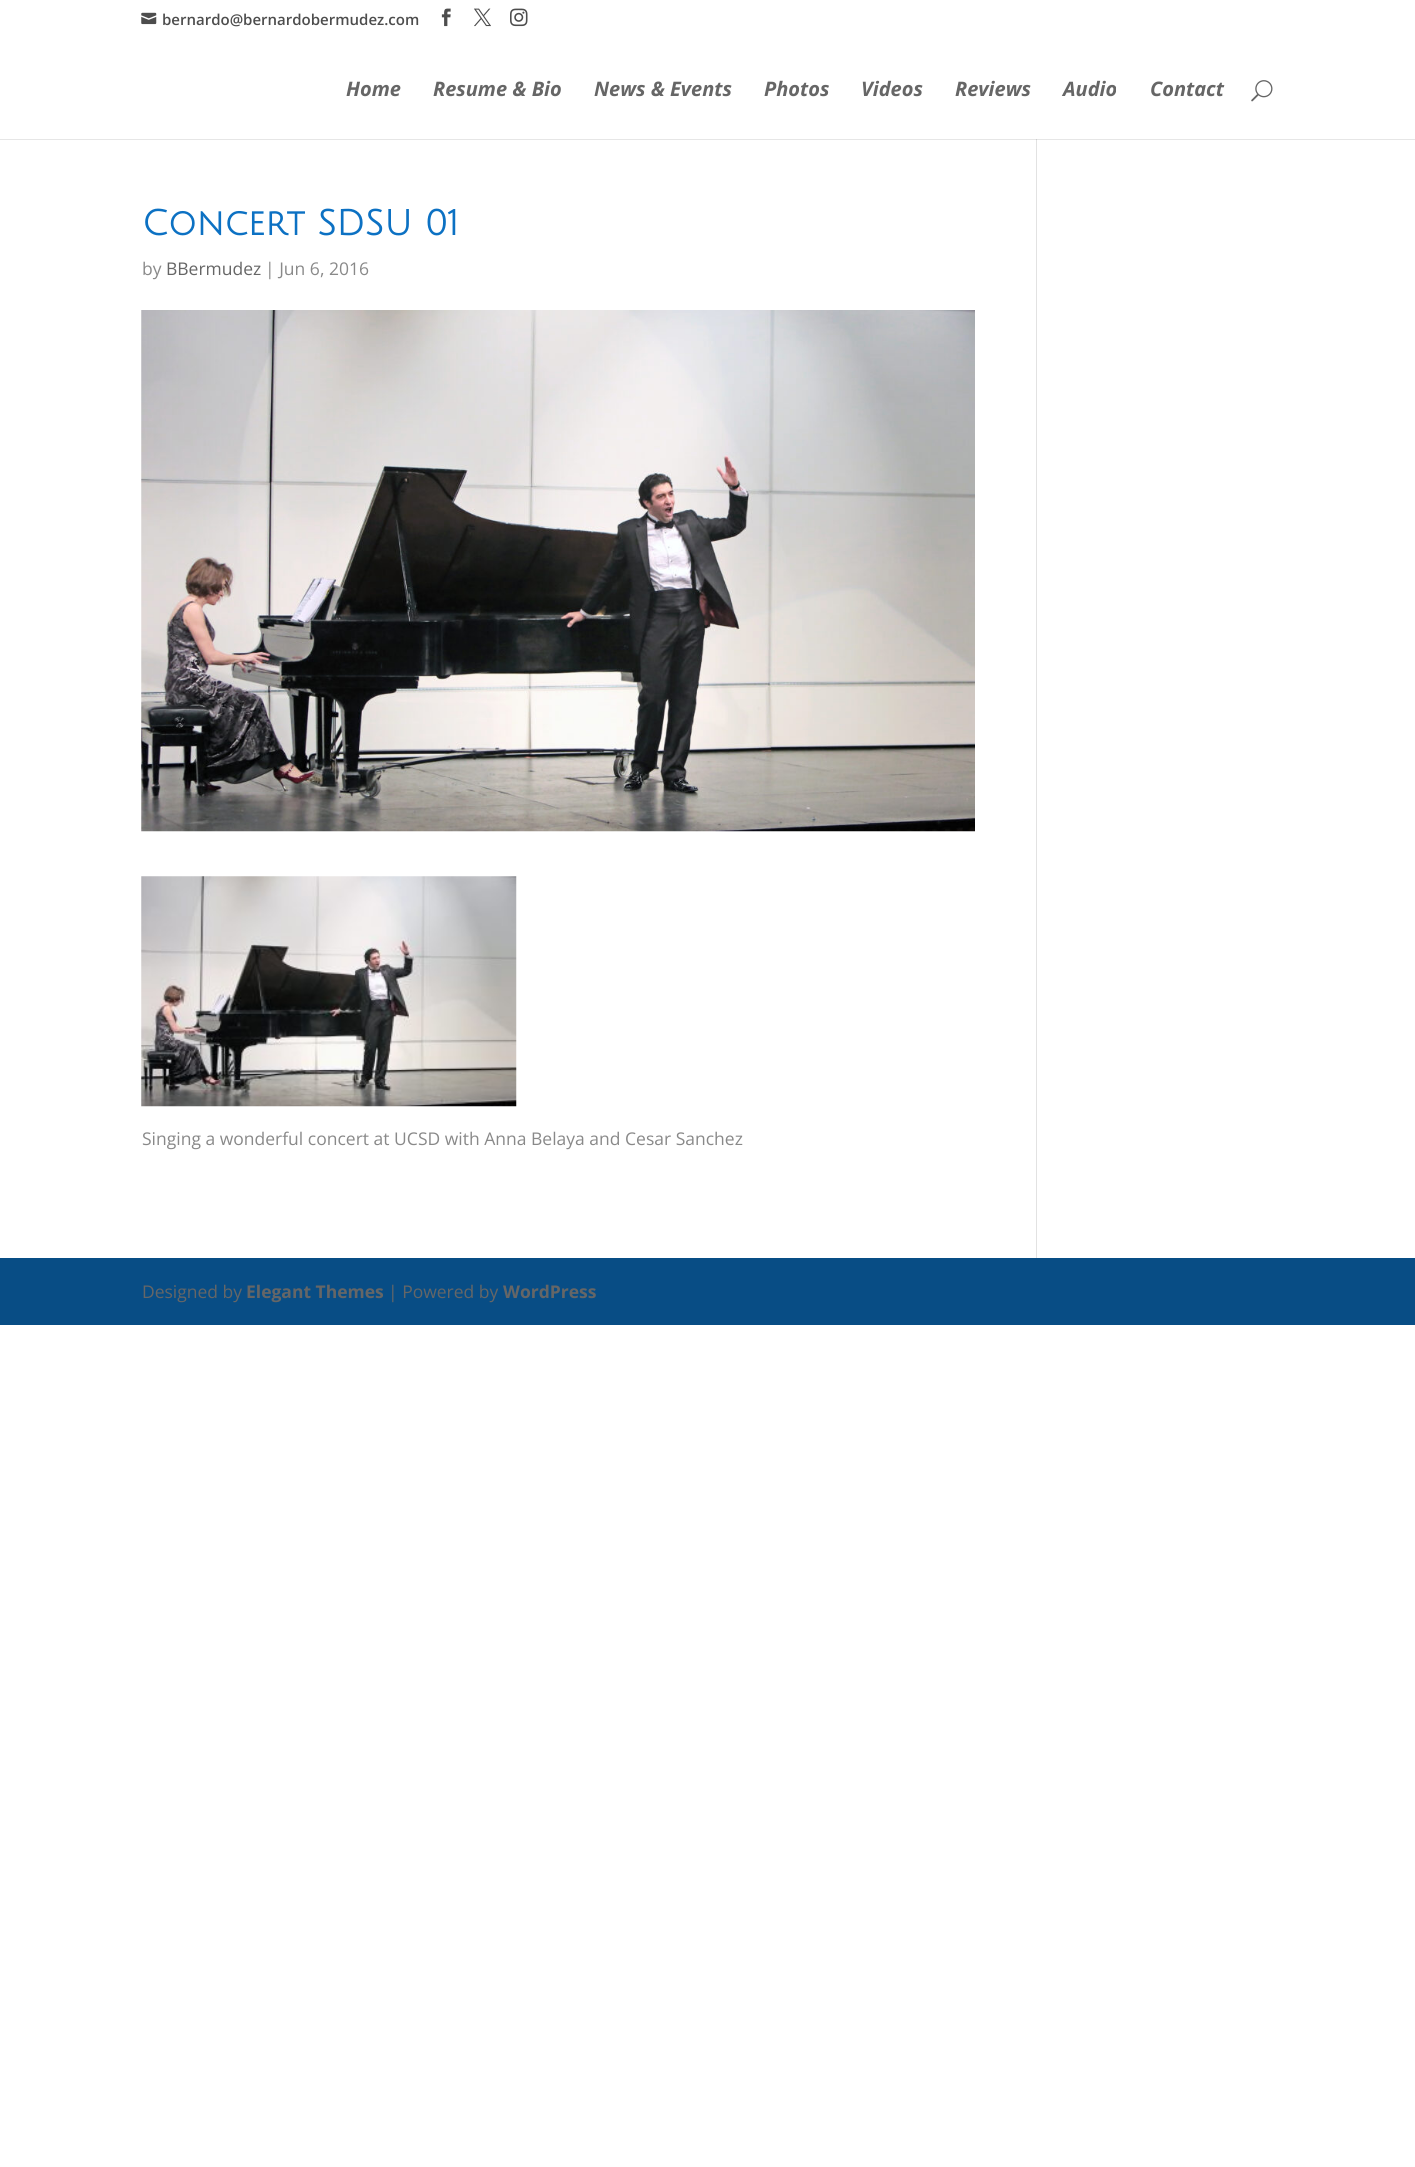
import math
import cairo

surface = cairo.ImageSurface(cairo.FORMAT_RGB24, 1415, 2167)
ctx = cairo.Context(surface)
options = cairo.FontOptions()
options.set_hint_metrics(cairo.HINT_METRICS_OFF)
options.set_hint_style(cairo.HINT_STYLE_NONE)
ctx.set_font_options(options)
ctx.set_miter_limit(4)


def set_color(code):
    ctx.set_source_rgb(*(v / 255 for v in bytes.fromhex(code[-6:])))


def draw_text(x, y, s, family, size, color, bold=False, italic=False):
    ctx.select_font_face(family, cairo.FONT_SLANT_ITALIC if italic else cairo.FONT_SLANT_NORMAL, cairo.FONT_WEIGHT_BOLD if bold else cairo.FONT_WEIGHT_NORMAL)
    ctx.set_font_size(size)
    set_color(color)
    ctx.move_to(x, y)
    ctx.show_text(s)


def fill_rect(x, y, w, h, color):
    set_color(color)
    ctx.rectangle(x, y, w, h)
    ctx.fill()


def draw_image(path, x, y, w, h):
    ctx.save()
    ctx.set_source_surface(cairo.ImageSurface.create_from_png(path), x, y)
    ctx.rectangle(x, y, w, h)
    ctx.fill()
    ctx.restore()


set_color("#ffffff")
ctx.paint()
draw_image("assets/img1.png", 141, 12, 16, 13)
draw_text(162, 25, "bernardo@bernardobermudez.com", "Open Sans SemiBold", 15, "#4d4d4d")
draw_image("assets/img2.png", 441, 8, 10, 19)
draw_image("assets/img3.png", 474, 8, 17, 19)
draw_image("assets/img4.png", 510, 8, 18, 19)
fill_rect(1036, 134, 1, 1124, "#e2e2e2")
ctx.set_source_rgba(0, 0, 0, 0.1)
ctx.rectangle(0, 139, 1415, 1)
ctx.fill()
fill_rect(1036, 134, 1, 5, "#ffffff")
draw_text(346, 96, "Home", "Open Sans", 20, "#666666", bold=True, italic=True)
draw_text(433, 96, "Resume & Bio", "Open Sans", 20, "#666666", bold=True, italic=True)
draw_text(594, 96, "News & Events", "Open Sans", 20, "#666666", bold=True, italic=True)
draw_text(764, 96, "Photos", "Open Sans", 20, "#666666", bold=True, italic=True)
draw_text(861, 96, "Videos", "Open Sans", 20, "#666666", bold=True, italic=True)
draw_text(955, 96, "Reviews", "Open Sans", 20, "#666666", bold=True, italic=True)
draw_text(1063, 96, "Audio", "Open Sans", 20, "#666666", bold=True, italic=True)
draw_text(1150, 96, "Contact", "Open Sans", 20, "#666666", bold=True, italic=True)
draw_image("assets/img5.png", 1251, 80, 22, 22)
draw_text(142, 235, "Concert SDSU 01", "Julius Sans One", 35, "#0c71c3", bold=True)
draw_text(142, 275, "by", "Open Sans", 17.5, "#898989")
draw_text(166, 275, "BBermudez", "Open Sans", 17.5, "#666666")
draw_text(265, 275, "| Jun 6, 2016", "Open Sans", 17.5, "#898989")
draw_image("assets/img6.png", 141, 310, 834, 522)
draw_image("assets/img7.png", 141, 876, 376, 231)
draw_text(142, 1145, "Singing a wonderful concert at UCSD with Anna Belaya and Cesar Sanchez", "Open Sans", 17.5, "#898989")
fill_rect(0, 1258, 1415, 67, "#084d85")
draw_text(142, 1298, "Designed by", "Open Sans", 17.5, "#666666")
draw_text(246, 1298, "Elegant Themes", "Open Sans", 17.5, "#666666", bold=True)
draw_text(388, 1298, "| Powered by", "Open Sans", 17.5, "#666666")
draw_text(503, 1298, "WordPress", "Open Sans", 17.5, "#666666", bold=True)
surface.write_to_png("output.png")
